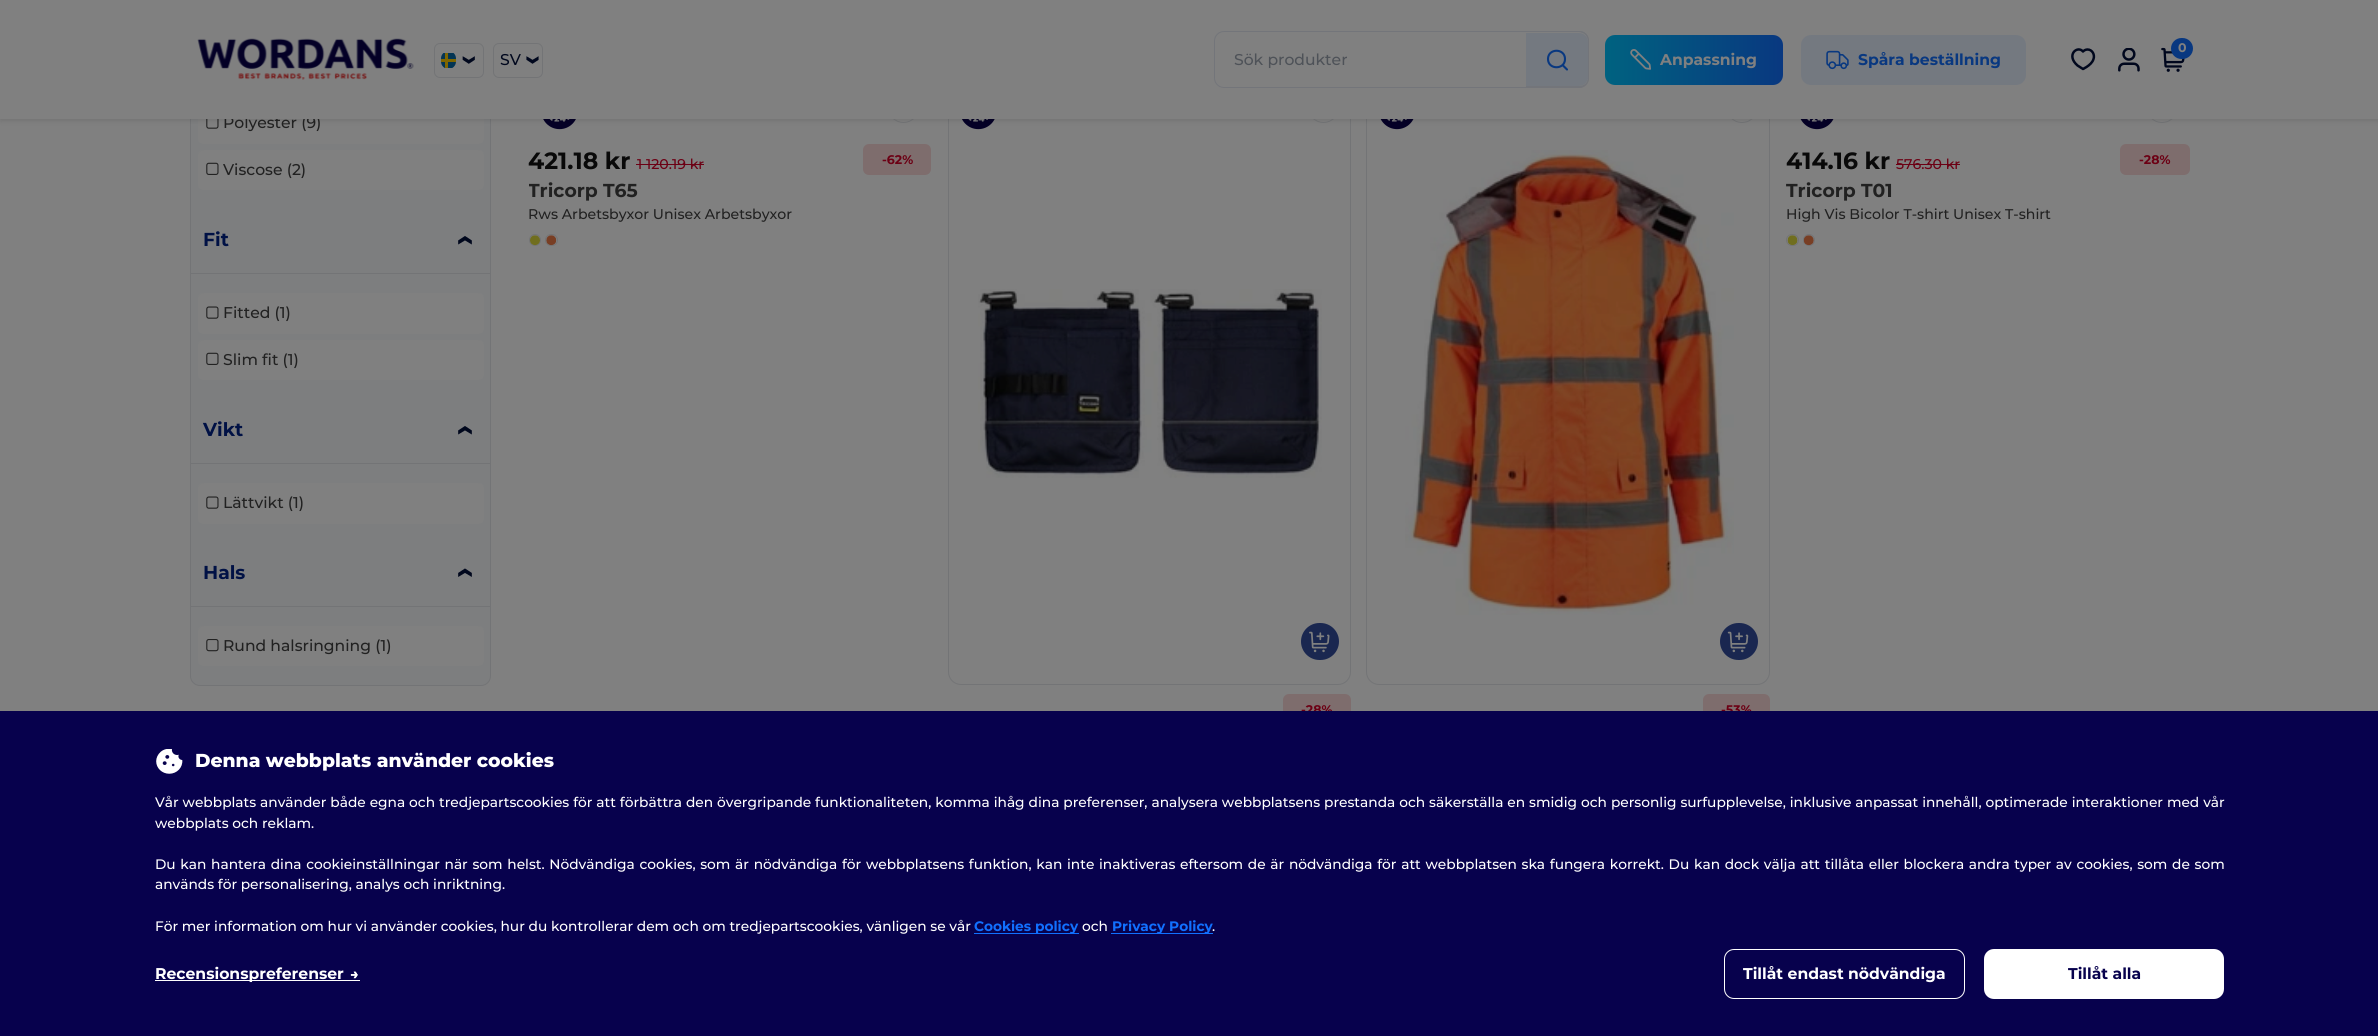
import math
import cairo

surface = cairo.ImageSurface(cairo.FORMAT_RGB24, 2378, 1036)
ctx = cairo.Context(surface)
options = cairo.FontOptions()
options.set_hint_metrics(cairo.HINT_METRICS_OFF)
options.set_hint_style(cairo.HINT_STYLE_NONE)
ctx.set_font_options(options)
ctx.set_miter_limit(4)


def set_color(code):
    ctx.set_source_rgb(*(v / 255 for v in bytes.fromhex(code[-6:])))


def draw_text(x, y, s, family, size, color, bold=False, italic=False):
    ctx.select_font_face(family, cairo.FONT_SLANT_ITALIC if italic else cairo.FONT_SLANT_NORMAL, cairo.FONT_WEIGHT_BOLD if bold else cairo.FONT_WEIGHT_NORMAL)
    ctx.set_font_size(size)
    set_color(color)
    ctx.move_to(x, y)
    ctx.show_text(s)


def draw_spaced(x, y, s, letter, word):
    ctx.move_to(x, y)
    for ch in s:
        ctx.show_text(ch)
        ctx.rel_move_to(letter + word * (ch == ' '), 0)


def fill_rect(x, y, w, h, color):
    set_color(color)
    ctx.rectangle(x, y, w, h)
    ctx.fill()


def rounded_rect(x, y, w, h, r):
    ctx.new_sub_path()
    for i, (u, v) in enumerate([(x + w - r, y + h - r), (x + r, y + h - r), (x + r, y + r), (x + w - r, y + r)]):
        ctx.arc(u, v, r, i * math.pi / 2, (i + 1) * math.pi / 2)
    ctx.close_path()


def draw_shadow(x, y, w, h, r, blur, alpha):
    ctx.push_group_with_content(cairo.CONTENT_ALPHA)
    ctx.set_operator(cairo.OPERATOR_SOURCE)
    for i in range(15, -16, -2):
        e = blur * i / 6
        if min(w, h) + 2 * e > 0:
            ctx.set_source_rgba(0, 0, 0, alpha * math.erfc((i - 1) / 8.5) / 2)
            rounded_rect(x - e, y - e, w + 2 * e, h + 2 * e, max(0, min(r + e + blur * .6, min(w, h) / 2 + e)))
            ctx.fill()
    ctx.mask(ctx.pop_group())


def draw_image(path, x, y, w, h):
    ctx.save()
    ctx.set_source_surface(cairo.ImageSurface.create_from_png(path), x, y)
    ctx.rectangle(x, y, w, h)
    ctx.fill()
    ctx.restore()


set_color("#808080")
ctx.paint()
set_color("#7d7e7f")
rounded_rect(190.5, -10.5, 300, 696, 9.5)
ctx.fill_preserve()
set_color("#737476")
ctx.set_line_width(1)
ctx.stroke()
set_color("#808080")
rounded_rect(198, 103, 286, 41, 6)
ctx.fill()
draw_image("assets/img8.png", 206, 119, 13, 10)
rounded_rect(888.5, 91.5, 30, 31, 15)
set_color("#737476")
ctx.stroke()
draw_image("assets/img14.png", 543, 119, 33, 11)
ctx.arc(2162, 107, 15.5, 0, 2 * math.pi)
ctx.stroke()
draw_image("assets/img17.png", 1800, 119, 34, 11)
rounded_rect(948.5, 79.5, 402, 605, 12.5)
ctx.stroke()
rounded_rect(1308.5, 91.5, 30, 31, 15)
ctx.stroke()
draw_image("assets/img20.png", 962, 119, 33, 11)
rounded_rect(1366.5, 79.5, 403, 605, 12.5)
ctx.stroke()
ctx.arc(1742, 107, 15.5, 0, 2 * math.pi)
ctx.stroke()
draw_image("assets/img17.png", 1380, 119, 34, 11)
set_color("#000000")
draw_shadow(0, 3, 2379, 118, 0, 2.5, 0.1)
draw_text(223, 128, "Polyester (9)", "Montserrat Medium", 15.6, "#212121")
fill_rect(0, 0, 2378, 119, "#808080")
draw_image("assets/img1.png", 197, 38, 217, 42)
rounded_rect(434.5, 43.5, 49, 34, 5.5)
set_color("#737476")
ctx.stroke()
ctx.save()
rounded_rect(441, 51, 15, 18, 7.5)
ctx.clip()
fill_rect(441, 53, 15, 15, "#033554")
ctx.restore()
fill_rect(441, 59, 15, 3, "#7f6600")
fill_rect(445, 53, 3, 15, "#7f6600")
draw_image("assets/img2.png", 462, 56, 13, 8)
rounded_rect(493.5, 43.5, 49, 34, 5.5)
set_color("#737476")
ctx.stroke()
draw_text(500, 65, "SV", "Montserrat Medium", 15.6, "#00071d")
draw_image("assets/img3.png", 526, 56, 13, 8)
ctx.new_path()
ctx.move_to(2087.5, 49.5)
ctx.curve_to(2092.5, 49.5, 2095, 55, 2093.5, 59)
ctx.curve_to(2092.5, 62.5, 2089.5, 65, 2086.5, 67)
ctx.line_to(2083, 69)
ctx.line_to(2077.5, 65.5)
ctx.curve_to(2065.5, 55, 2077.5, 45, 2083, 51.5)
ctx.curve_to(2084, 50.5, 2085.5, 49.5, 2087.5, 49.5)
ctx.close_path()
ctx.set_line_width(2.5)
ctx.set_line_cap(cairo.LINE_CAP_ROUND)
ctx.set_line_join(cairo.LINE_JOIN_ROUND)
ctx.stroke()
draw_image("assets/img4.png", 2118, 48, 22, 24)
draw_image("assets/img5.png", 2161, 47, 25, 25)
set_color("#093880")
rounded_rect(2171, 38, 22, 21, 10.5)
ctx.fill()
draw_text(2178, 52, "0", "Montserrat", 12.5, "#808080", bold=True)
rounded_rect(1214.5, 31.5, 374, 56, 9.5)
set_color("#73757a")
ctx.set_line_width(1)
ctx.set_line_cap(cairo.LINE_CAP_BUTT)
ctx.set_line_join(cairo.LINE_JOIN_MITER)
ctx.stroke()
draw_text(1234, 65, "Sök produkter", "Montserrat Medium", 15.6, "#4e5258")
set_color("#747980")
ctx.new_path()
ctx.move_to(1526, 33)
ctx.line_to(1579, 33)
ctx.curve_to(1584, 33, 1588, 37, 1588, 42)
ctx.line_to(1588, 77)
ctx.curve_to(1588, 82, 1584, 86, 1579, 86)
ctx.line_to(1526, 86)
ctx.close_path()
ctx.fill()
set_color("#73757a")
ctx.set_fill_rule(cairo.FILL_RULE_EVEN_ODD)
ctx.new_path()
ctx.move_to(1526, 31)
ctx.line_to(1579, 31)
ctx.curve_to(1585, 31, 1589, 35, 1589, 41)
ctx.line_to(1589, 78)
ctx.curve_to(1589, 83, 1585, 88, 1579, 88)
ctx.line_to(1526, 88)
ctx.close_path()
ctx.move_to(1526, 32)
ctx.line_to(1579, 32)
ctx.curve_to(1584, 32, 1588, 36, 1588, 41)
ctx.line_to(1588, 78)
ctx.curve_to(1588, 83, 1584, 86, 1579, 86)
ctx.line_to(1526, 86)
ctx.close_path()
ctx.fill()
ctx.new_path()
ctx.move_to(1567, 69.5)
ctx.line_to(1562.5, 65)
ctx.move_to(1565, 59)
ctx.curve_to(1565, 70, 1548, 70, 1548, 59)
ctx.curve_to(1548, 48, 1565, 48, 1565, 59)
ctx.close_path()
set_color("#093880")
ctx.set_line_width(2.1)
ctx.set_line_cap(cairo.LINE_CAP_ROUND)
ctx.set_line_join(cairo.LINE_JOIN_ROUND)
ctx.stroke()
gradient = cairo.LinearGradient(1605, 60, 1783, 60)
gradient.add_color_stop_rgba(0, 0, 0.384, 0.502, 1)
gradient.add_color_stop_rgba(1, 0.035, 0.22, 0.502, 1)
ctx.set_source(gradient)
rounded_rect(1605, 35, 178, 50, 10)
ctx.fill()
draw_image("assets/img6.png", 1630, 49, 21, 21)
draw_text(1660, 65, "Anpassning", "Montserrat", 15.6, "#808080", bold=True)
set_color("#747980")
rounded_rect(1801, 35, 225, 50, 10)
ctx.fill()
draw_image("assets/img7.png", 1826, 50, 23, 20)
draw_text(1858, 65, "Spåra beställning", "Montserrat", 15.6, "#093880", bold=True)
set_color("#808080")
rounded_rect(198, 150, 286, 40, 6)
ctx.fill()
draw_image("assets/img9.png", 206, 162, 13, 13)
draw_text(223, 175, "Viscose (2)", "Montserrat Medium", 15.6, "#212121")
draw_text(203, 246, "Fit", "Montserrat", 18.75, "#001145", bold=True)
draw_image("assets/img10.png", 458, 236, 14, 9)
fill_rect(191, 273, 299, 1, "#737476")
set_color("#808080")
rounded_rect(198, 293, 286, 41, 6)
ctx.fill()
draw_image("assets/img11.png", 206, 306, 13, 13)
draw_text(223, 318, "Fitted (1)", "Montserrat Medium", 15.6, "#212121")
set_color("#808080")
rounded_rect(198, 340, 286, 40, 6)
ctx.fill()
draw_image("assets/img9.png", 206, 352, 13, 13)
draw_text(223, 365, "Slim fit (1)", "Montserrat Medium", 15.6, "#212121")
draw_text(203, 436, "Vikt", "Montserrat", 18.75, "#001145", bold=True)
draw_image("assets/img10.png", 458, 426, 14, 9)
fill_rect(191, 463, 299, 1, "#737476")
set_color("#808080")
rounded_rect(198, 483, 286, 41, 6)
ctx.fill()
draw_image("assets/img11.png", 206, 496, 13, 13)
draw_text(223, 508, "Lättvikt (1)", "Montserrat Medium", 15.6, "#212121")
draw_text(203, 579, "Hals", "Montserrat", 18.75, "#001145", bold=True)
draw_image("assets/img12.png", 458, 568, 14, 9)
fill_rect(191, 606, 299, 1, "#737476")
set_color("#808080")
rounded_rect(198, 626, 286, 40, 6)
ctx.fill()
draw_image("assets/img13.png", 206, 639, 13, 13)
draw_text(223, 651, "Rund halsringning (1)", "Montserrat Medium", 15.6, "#212121")
draw_text(528, 169, "421.18 kr", "Montserrat", 23.5, "#090909", bold=True)
draw_text(637, 169, "1 120.19 kr", "Montserrat Medium", 14.1, "#6c0014")
fill_rect(636, 164, 68, 1, "#6c0014")
set_color("#7e6d6d")
rounded_rect(863, 144, 68, 31, 6)
ctx.fill()
draw_text(882, 164, "-62%", "Montserrat", 12.5, "#6c0014", bold=True)
ctx.save()
ctx.set_fill_rule(cairo.FILL_RULE_WINDING)
ctx.rectangle(529, 179, 402, 25)
ctx.clip()
draw_text(528, 197, "Tricorp T65", "Montserrat", 18.75, "#212121", bold=True)
ctx.restore()
draw_text(528, 219, "Rws Arbetsbyxor Unisex Arbetsbyxor", "Montserrat Medium", 14.1, "#212121")
ctx.new_path()
ctx.arc(535, 240, 5.5, 0, 2 * math.pi)
set_color("#737476")
ctx.set_line_width(1)
ctx.set_line_cap(cairo.LINE_CAP_BUTT)
ctx.set_line_join(cairo.LINE_JOIN_MITER)
ctx.stroke()
rounded_rect(545.5, 234.5, 12, 11, 5.5)
ctx.stroke()
draw_image("assets/img15.png", 530, 235, 10, 11)
draw_image("assets/img16.png", 546, 235, 11, 11)
draw_text(1786, 169, "414.16 kr", "Montserrat", 23.5, "#090909", bold=True)
draw_text(1896, 169, "576.30 kr", "Montserrat Medium", 14.1, "#6c0014")
fill_rect(1896, 164, 64, 1, "#6c0014")
set_color("#7e6d6d")
rounded_rect(2120, 144, 70, 31, 6)
ctx.fill()
draw_text(2139, 164, "-28%", "Montserrat", 12.5, "#6c0014", bold=True)
draw_text(1786, 197, "Tricorp T01", "Montserrat", 18.75, "#212121", bold=True)
draw_text(1786, 219, "High Vis Bicolor T-shirt Unisex T-shirt", "Montserrat Medium", 14.1, "#212121")
rounded_rect(1786.5, 234.5, 12, 11, 5.5)
set_color("#737476")
ctx.stroke()
ctx.arc(1809, 240, 5.5, 0, 2 * math.pi)
ctx.stroke()
draw_image("assets/img18.png", 1787, 235, 11, 11)
draw_image("assets/img19.png", 1803, 235, 11, 11)
draw_image("assets/img21.png", 978, 289, 344, 189)
draw_image("assets/img22.png", 1301, 623, 38, 37)
set_color("#7e6d6d")
rounded_rect(1283, 694, 68, 31, 6)
ctx.fill()
draw_text(1301, 714, "-28%", "Montserrat", 12.5, "#6c0014", bold=True)
draw_image("assets/img23.png", 1405, 150, 329, 465)
draw_image("assets/img24.png", 1720, 623, 38, 37)
set_color("#7e6d6d")
rounded_rect(1703, 694, 67, 31, 6)
ctx.fill()
draw_text(1721, 714, "-53%", "Montserrat", 12.5, "#6c0014", bold=True)
fill_rect(0, 711, 2378, 325, "#07014d")
draw_image("assets/img25.png", 156, 749, 27, 25)
draw_text(195, 767, "Denna webbplats använder cookies", "Montserrat ExtraBold", 18.75, "#ffffff")
ctx.select_font_face("Montserrat Medium")
ctx.set_font_size(13.75)
draw_spaced(155, 807, "Vår webbplats använder både egna och tredjepartscookies för att förbättra den övergripande funktionaliteten, komma ihåg dina preferenser, analysera webbplatsens prestanda och säkerställa en smidig och personlig surfupplevelse, inklusive anpassat innehåll, optimerade interaktioner med vår", 0, 0.25)
draw_text(155, 828, "webbplats och reklam.", "Montserrat Medium", 13.75, "#ffffff")
draw_spaced(155, 869, "Du kan hantera dina cookieinställningar när som helst. Nödvändiga cookies, som är nödvändiga för webbplatsens funktion, kan inte inaktiveras eftersom de är nödvändiga för att webbplatsen ska fungera korrekt. Du kan dock välja att tillåta eller blockera andra typer av cookies, som de som", 0, 1)
draw_text(155, 889, "används för personalisering, analys och inriktning.", "Montserrat Medium", 13.75, "#ffffff")
draw_text(155, 931, "För mer information om hur vi använder cookies, hur du kontrollerar dem och om tredjepartscookies, vänligen se vår", "Montserrat Medium", 13.75, "#ffffff")
fill_rect(974, 933, 105, 1, "#1170ff")
draw_text(974, 931, "Cookies policy", "Montserrat", 13.75, "#1170ff", bold=True)
draw_text(1082, 931, "och", "Montserrat Medium", 13.75, "#ffffff")
fill_rect(1111, 933, 102, 1, "#1170ff")
draw_text(1112, 931, "Privacy Policy", "Montserrat", 13.75, "#1170ff", bold=True)
draw_text(1212, 931, ".", "Montserrat Medium", 13.75, "#ffffff")
draw_text(155, 979, "Recensionspreferenser", "Montserrat", 15.6, "#ffffff", bold=True)
draw_image("assets/img26.png", 350, 971, 8, 8)
fill_rect(155, 980, 205, 1, "#ffffff")
rounded_rect(1724.5, 949.5, 240, 49, 9.5)
ctx.stroke()
draw_text(1743, 979, "Tillåt endast nödvändiga", "Montserrat", 15.6, "#ffffff", bold=True)
rounded_rect(1984, 949, 240, 50, 10)
ctx.fill()
draw_text(2068, 979, "Tillåt alla", "Montserrat", 15.6, "#07014d", bold=True)
surface.write_to_png("output.png")
